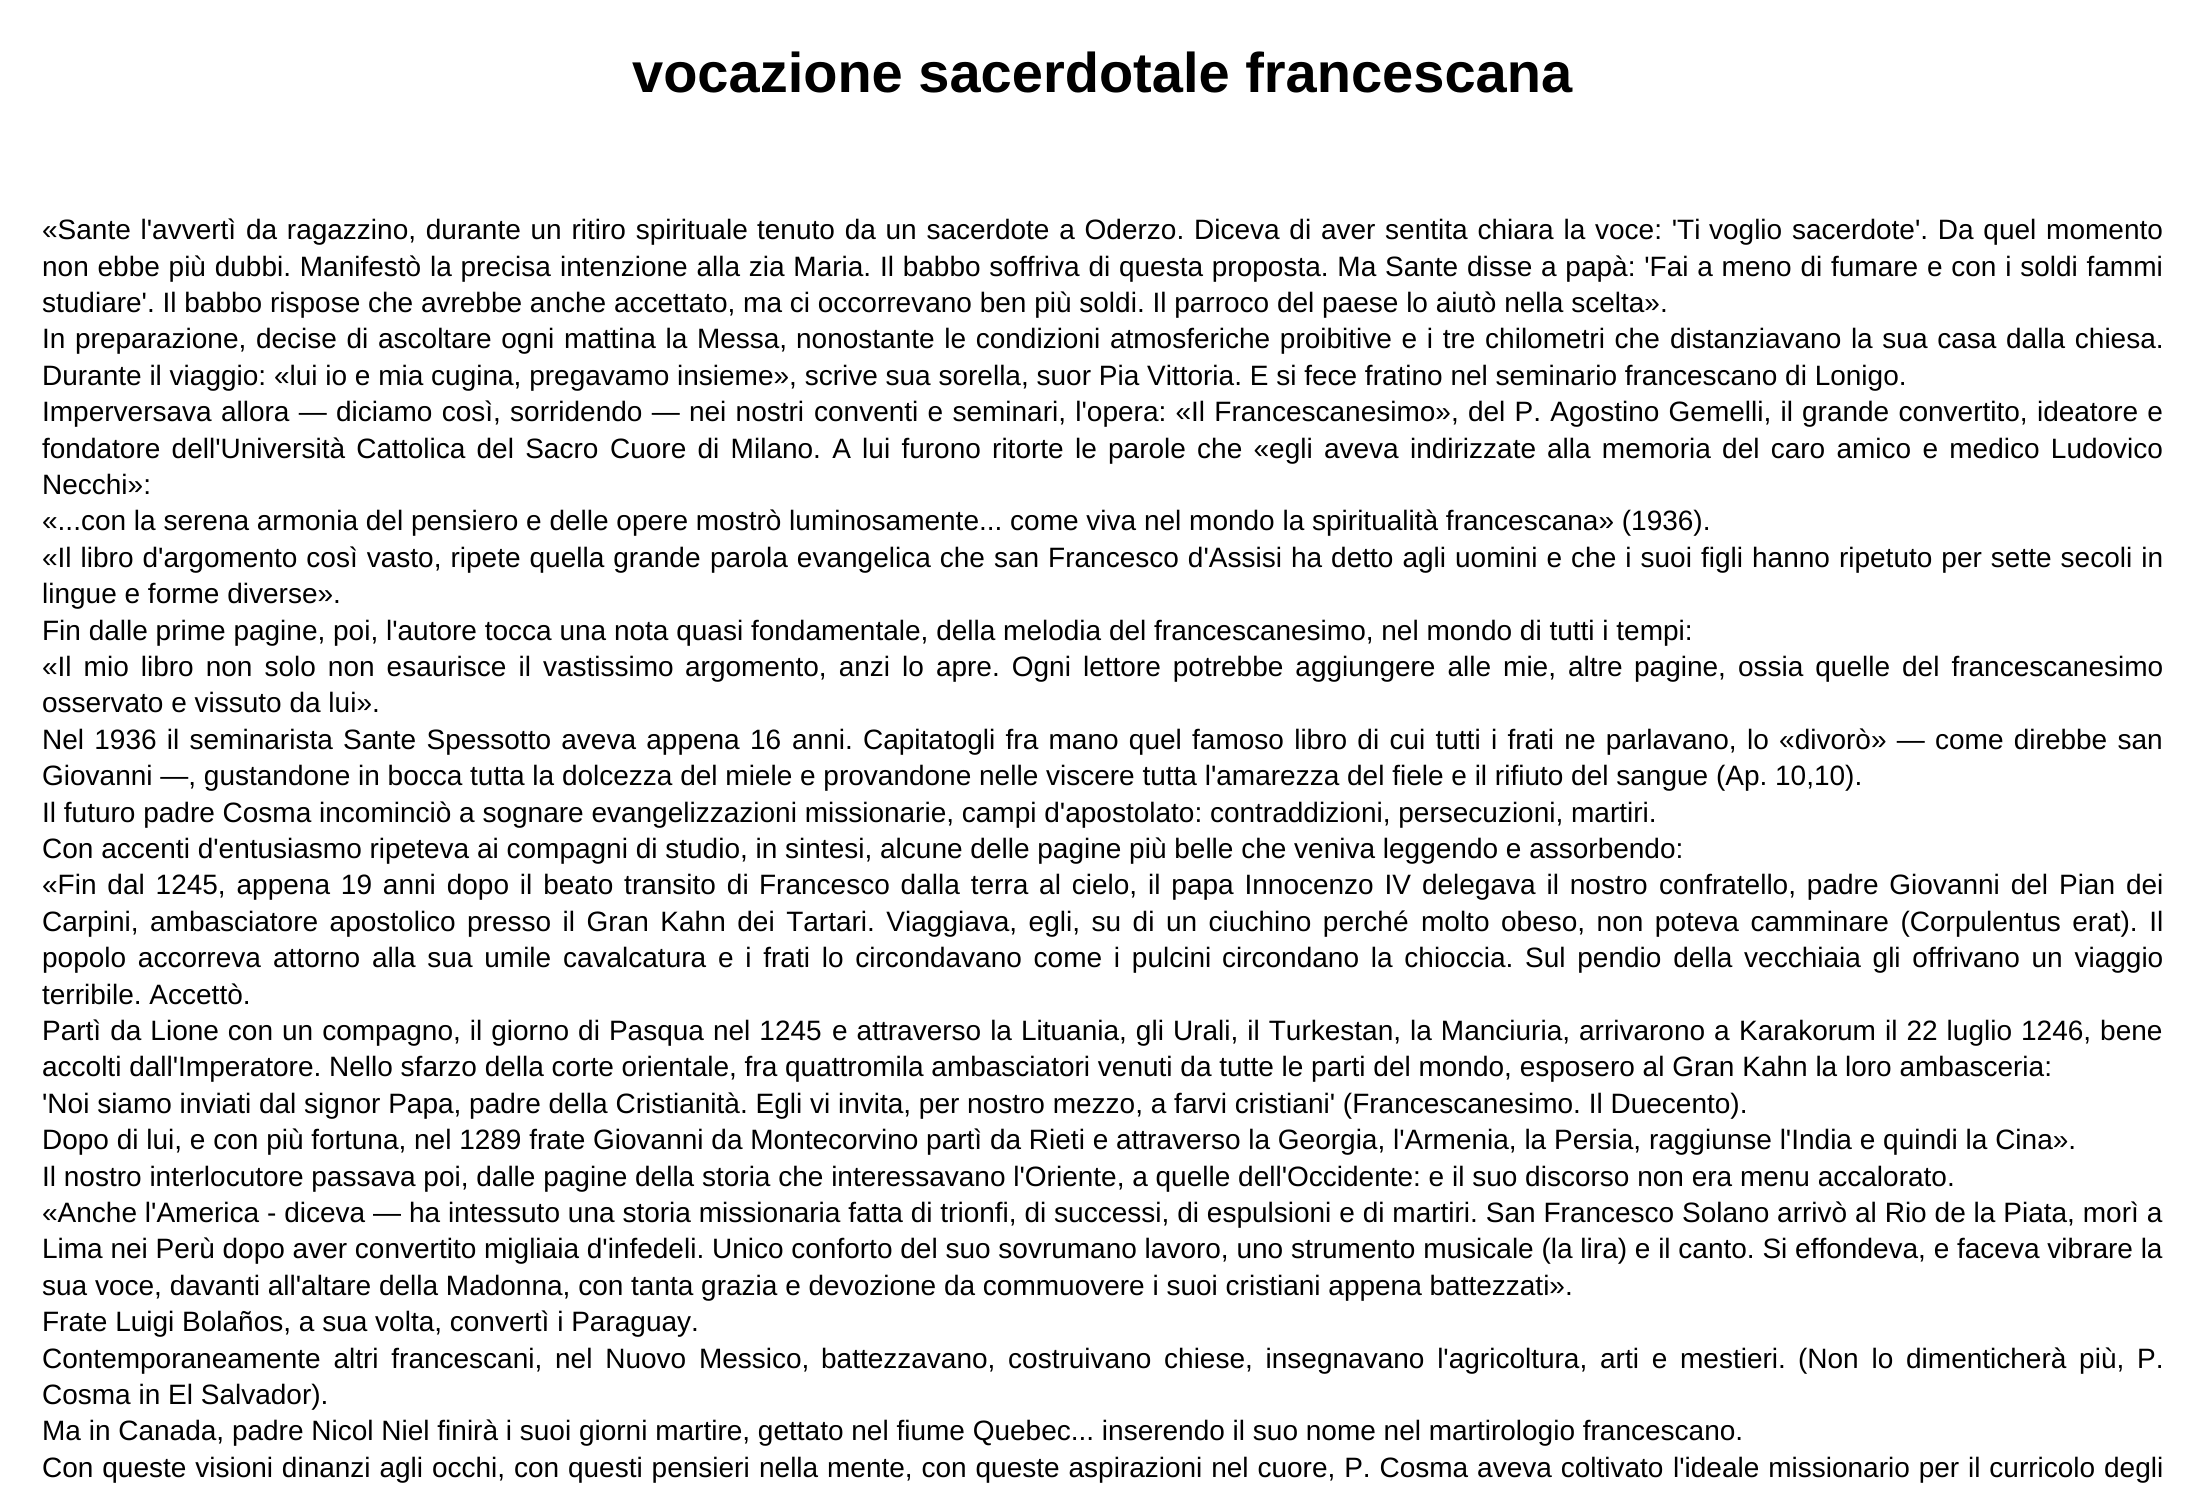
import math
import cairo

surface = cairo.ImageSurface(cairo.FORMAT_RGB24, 2204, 1503)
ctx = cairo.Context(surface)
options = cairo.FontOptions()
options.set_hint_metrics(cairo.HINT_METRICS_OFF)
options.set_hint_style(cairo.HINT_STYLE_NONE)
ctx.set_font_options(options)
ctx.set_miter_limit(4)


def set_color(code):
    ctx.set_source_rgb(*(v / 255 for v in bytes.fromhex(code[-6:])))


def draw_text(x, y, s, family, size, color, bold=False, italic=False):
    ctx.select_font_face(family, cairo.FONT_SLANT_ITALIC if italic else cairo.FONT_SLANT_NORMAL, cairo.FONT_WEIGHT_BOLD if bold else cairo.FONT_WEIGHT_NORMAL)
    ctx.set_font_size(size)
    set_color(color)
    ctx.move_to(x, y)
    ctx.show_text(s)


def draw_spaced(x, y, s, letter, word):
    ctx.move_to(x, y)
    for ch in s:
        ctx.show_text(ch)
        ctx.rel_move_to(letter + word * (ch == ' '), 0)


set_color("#ffffff")
ctx.paint()
draw_text(632, 92, "vocazione sacerdotale francescana", "Liberation Sans", 56, "#000000", bold=True)
ctx.select_font_face("Liberation Sans")
ctx.set_font_size(28)
draw_spaced(42, 239, "«Sante l'avvertì da ragazzino, durante un ritiro spirituale", 0, 2)
draw_spaced(757, 239, "tenuto da un sacerdote a Oderzo. Diceva di aver sentita chiara la voce: 'Ti", 0, 2)
draw_spaced(1709, 239, "voglio sacerdote'. Da quel momento", 0, 2)
draw_spaced(42, 276, "non ebbe più dubbi. Manifestò la precisa", 0, 1)
draw_spaced(560, 276, "intenzione alla zia Maria. Il babbo soffriva di questa proposta. Ma Sante disse", 0, 1)
draw_spaced(1541, 276, "a papà: 'Fai a meno di fumare e con i soldi fammi", 0, 1)
draw_text(42, 312, "studiare'. Il babbo rispose che avrebbe anche accettato, ma ci occorrevano ben più soldi. Il parroco del paese lo aiutò nella scelta».", "Liberation Sans", 28, "#000000")
draw_spaced(42, 348, "In preparazione, decise di ascoltare ogni mattina la Messa,", 0, 1.9)
draw_spaced(796, 348, "nonostante le condizioni atmosferiche proibitive e i tre chilometri che", 0, 1.9)
draw_spaced(1670, 348, "distanziavano la sua casa dalla chiesa.", 0, 1.9)
draw_text(42, 385, "Durante il viaggio: «lui io e mia cugina, pregavamo insieme», scrive sua sorella, suor Pia Vittoria. E si fece fratino nel seminario francescano di Lonigo.", "Liberation Sans", 28, "#000000")
draw_spaced(42, 421, "Imperversava allora — diciamo così, sorridendo — nei nostri", 0, 1.5)
draw_spaced(814, 421, "conventi e seminari, l'opera: «Il Francescanesimo», del P. Agostino Gemelli, il", 0, 1.5)
draw_spaced(1802, 421, "grande convertito, ideatore e", 0, 1.5)
draw_spaced(42, 458, "fondatore dell'Università Cattolica del Sacro", 0, 3.5)
draw_spaced(610, 458, "Cuore di Milano. A lui furono ritorte le parole che «egli aveva indirizzate", 0, 3.5)
draw_spaced(1547, 458, "alla memoria del caro amico e medico Ludovico", 0, 3.5)
draw_text(42, 494, "Necchi»:", "Liberation Sans", 28, "#000000")
draw_text(42, 530, "«...con la serena armonia del pensiero e delle opere mostrò luminosamente... come viva nel mondo la spiritualità francescana» (1936).", "Liberation Sans", 28, "#000000")
draw_spaced(42, 567, "«Il libro d'argomento così vasto, ripete quella grande", 0, 1.25)
draw_spaced(710, 567, "parola evangelica che san Francesco d'Assisi ha detto agli uomini e che i suoi", 0, 1.25)
draw_spaced(1701, 567, "figli hanno ripetuto per sette secoli in", 0, 1.25)
draw_text(42, 603, "lingue e forme diverse».", "Liberation Sans", 28, "#000000")
draw_text(42, 640, "Fin dalle prime pagine, poi, l'autore tocca una nota quasi fondamentale, della melodia del francescanesimo, nel mondo di tutti i tempi:", "Liberation Sans", 28, "#000000")
draw_spaced(42, 676, "«Il mio libro non solo non esaurisce il vastissimo", 0, 4.25)
draw_spaced(685, 676, "argomento, anzi lo apre. Ogni lettore potrebbe aggiungere alle mie, altre", 0, 4.25)
draw_spaced(1634, 676, "pagine, ossia quelle del francescanesimo", 0, 4.25)
draw_text(42, 712, "osservato e vissuto da lui».", "Liberation Sans", 28, "#000000")
draw_spaced(42, 749, "Nel 1936 il seminarista Sante Spessotto aveva appena 16", 0, 2.5)
draw_spaced(792, 749, "anni. Capitatogli fra mano quel famoso libro di cui tutti i frati ne parlavano,", 0, 2.5)
draw_spaced(1747, 749, "lo «divorò» — come direbbe san", 0, 2.5)
draw_text(42, 785, "Giovanni —, gustandone in bocca tutta la dolcezza del miele e provandone nelle viscere tutta l'amarezza del fiele e il rifiuto del sangue (Ap. 10,10).", "Liberation Sans", 28, "#000000")
draw_text(42, 822, "Il futuro padre Cosma incominciò a sognare evangelizzazioni missionarie, campi d'apostolato: contraddizioni, persecuzioni, martiri.", "Liberation Sans", 28, "#000000")
draw_text(42, 858, "Con accenti d'entusiasmo ripeteva ai compagni di studio, in sintesi, alcune delle pagine più belle che veniva leggendo e assorbendo:", "Liberation Sans", 28, "#000000")
draw_spaced(42, 894, "«Fin dal 1245, appena 19 anni dopo il beato transito di", 0, 3.1)
draw_spaced(759, 894, "Francesco dalla terra al cielo, il papa Innocenzo IV delegava il nostro", 0, 3.1)
draw_spaced(1659, 894, "confratello, padre Giovanni del Pian dei", 0, 3.1)
draw_spaced(42, 931, "Carpini, ambasciatore apostolico", 0, 3.75)
draw_spaced(467, 931, "presso il Gran Kahn dei Tartari. Viaggiava, egli, su di un ciuchino perché", 0, 3.75)
draw_spaced(1421, 931, "molto obeso, non poteva camminare (Corpulentus erat). Il", 0, 3.75)
draw_spaced(42, 967, "popolo accorreva", 0, 4)
draw_spaced(273, 967, "attorno alla sua umile cavalcatura e i frati lo circondavano come i pulcini", 0, 4)
draw_spaced(1222, 967, "circondano la chioccia. Sul pendio della vecchiaia gli offrivano un viaggio", 0, 4)
draw_text(42, 1004, "terribile. Accettò.", "Liberation Sans", 28, "#000000")
draw_spaced(42, 1040, "Partì da Lione con un compagno, il giorno di Pasqua nel 1245", 0, 1.25)
draw_spaced(832, 1040, "e attraverso la Lituania, gli Urali, il Turkestan, la Manciuria, arrivarono a", 0, 1.25)
draw_spaced(1739, 1040, "Karakorum il 22 luglio 1246, bene", 0, 1.25)
draw_text(42, 1076, "accolti dall'Imperatore. Nello sfarzo della corte orientale, fra quattromila ambasciatori venuti da tutte le parti del mondo, esposero al Gran Kahn la loro ambasceria:", "Liberation Sans", 28, "#000000")
draw_text(42, 1113, "'Noi siamo inviati dal signor Papa, padre della Cristianità. Egli vi invita, per nostro mezzo, a farvi cristiani' (Francescanesimo. Il Duecento).", "Liberation Sans", 28, "#000000")
draw_text(42, 1149, "Dopo di lui, e con più fortuna, nel 1289 frate Giovanni da Montecorvino partì da Rieti e attraverso la Georgia, l'Armenia, la Persia, raggiunse l'India e quindi la Cina».", "Liberation Sans", 28, "#000000")
draw_text(42, 1186, "Il nostro interlocutore passava poi, dalle pagine della storia che interessavano l'Oriente, a quelle dell'Occidente: e il suo discorso non era menu accalorato.", "Liberation Sans", 28, "#000000")
draw_spaced(42, 1222, "«Anche l'America - diceva — ha intessuto una storia missionaria fatta di trionfi, di successi, di espulsioni e di martiri. San Francesco Solano arrivò al Rio de la Piata, morì a", 0, 0.1)
draw_text(42, 1258, "Lima nei Perù dopo aver convertito migliaia d'infedeli. Unico conforto del suo sovrumano lavoro, uno strumento musicale (la lira) e il canto. Si effondeva, e faceva vibrare la", "Liberation Sans", 28, "#000000")
draw_text(42, 1295, "sua voce, davanti all'altare della Madonna, con tanta grazia e devozione da commuovere i suoi cristiani appena battezzati».", "Liberation Sans", 28, "#000000")
draw_text(42, 1331, "Frate Luigi Bolaños, a sua volta, convertì i Paraguay.", "Liberation Sans", 28, "#000000")
draw_spaced(42, 1368, "Contemporaneamente altri francescani, nel Nuovo Messico,", 0, 5)
draw_spaced(821, 1368, "battezzavano, costruivano chiese, insegnavano l'agricoltura, arti e mestieri.", 0, 5)
draw_spaced(1798, 1368, "(Non lo dimenticherà più, P.", 0, 5)
draw_text(42, 1404, "Cosma in El Salvador).", "Liberation Sans", 28, "#000000")
draw_text(42, 1440, "Ma in Canada, padre Nicol Niel finirà i suoi giorni martire, gettato nel fiume Quebec... inserendo il suo nome nel martirologio francescano.", "Liberation Sans", 28, "#000000")
draw_spaced(42, 1477, "Con queste visioni dinanzi agli occhi, con questi pensieri", 0, 1.1)
draw_spaced(759, 1477, "nella mente, con queste aspirazioni nel cuore, P. Cosma aveva coltivato", 0, 1.1)
draw_spaced(1673, 1477, "l'ideale missionario per il curricolo degli", 0, 1.1)
surface.write_to_png("output.png")
